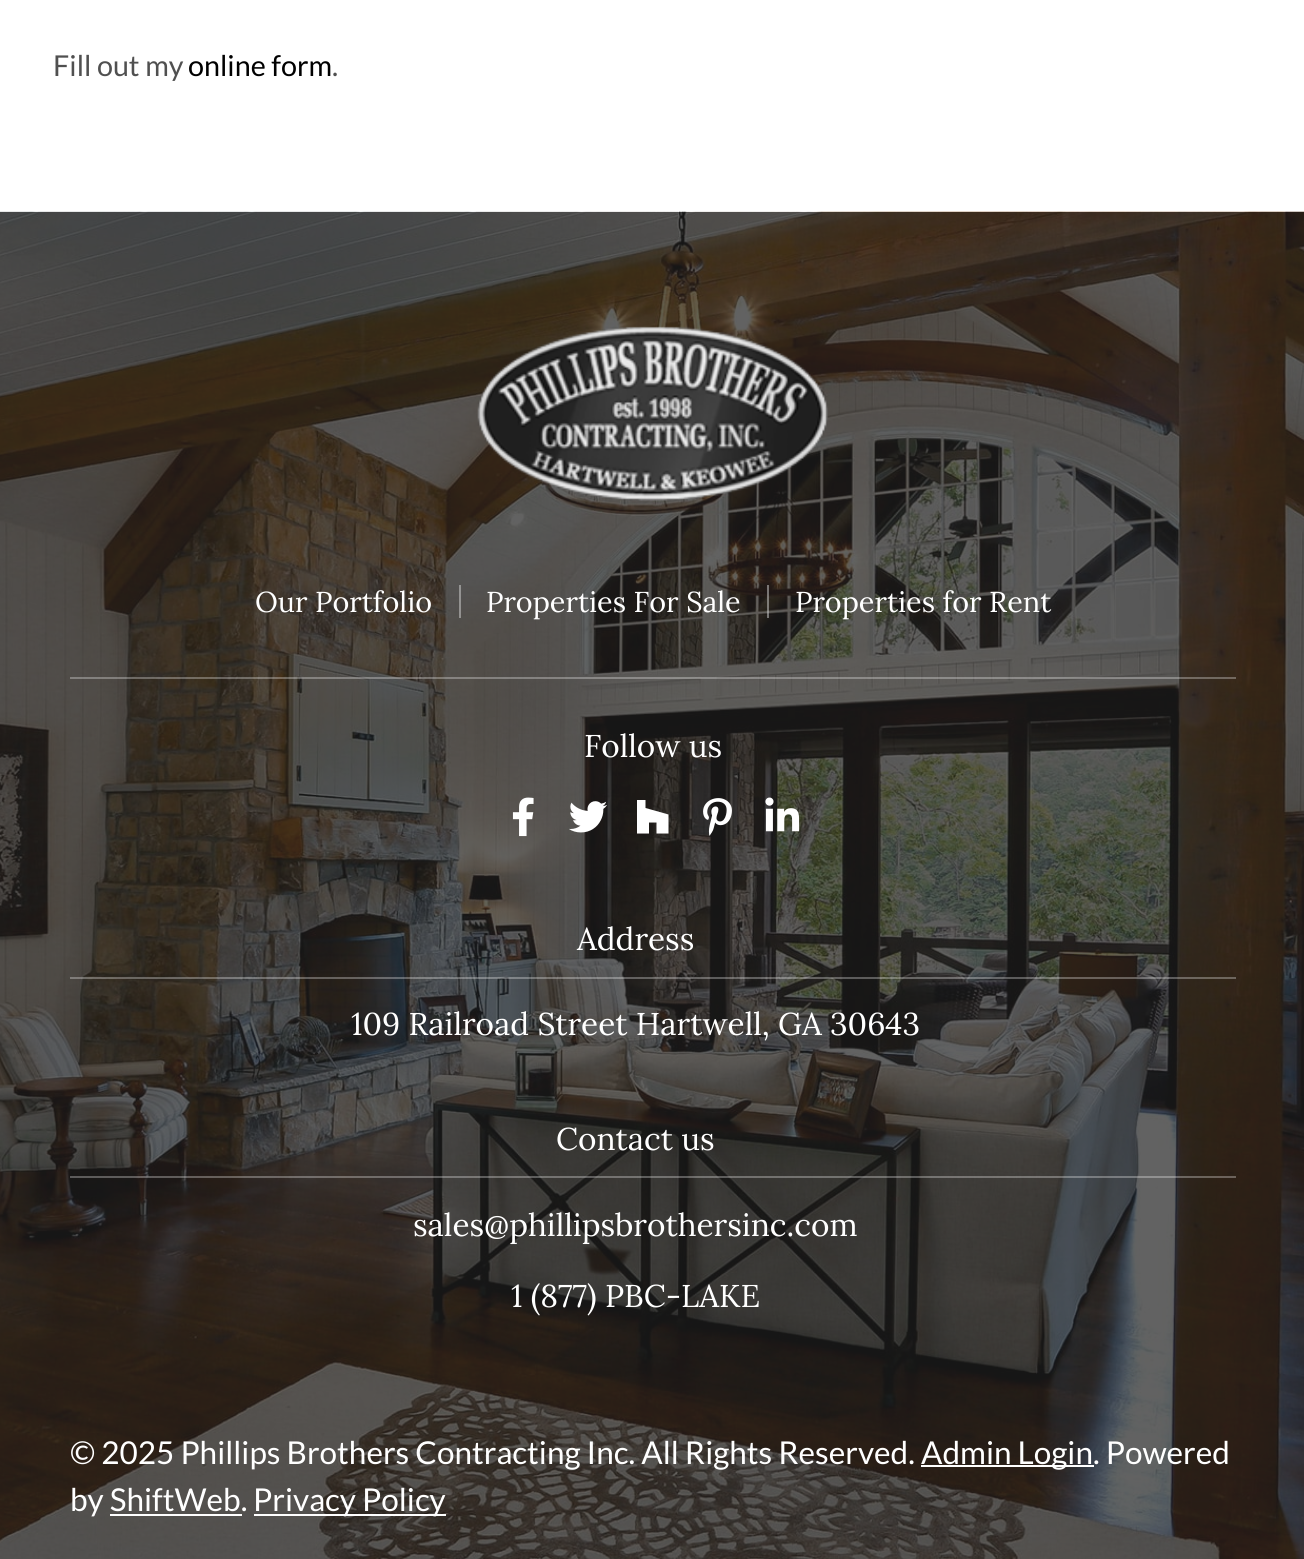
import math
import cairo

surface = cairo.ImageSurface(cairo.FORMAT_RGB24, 1304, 1559)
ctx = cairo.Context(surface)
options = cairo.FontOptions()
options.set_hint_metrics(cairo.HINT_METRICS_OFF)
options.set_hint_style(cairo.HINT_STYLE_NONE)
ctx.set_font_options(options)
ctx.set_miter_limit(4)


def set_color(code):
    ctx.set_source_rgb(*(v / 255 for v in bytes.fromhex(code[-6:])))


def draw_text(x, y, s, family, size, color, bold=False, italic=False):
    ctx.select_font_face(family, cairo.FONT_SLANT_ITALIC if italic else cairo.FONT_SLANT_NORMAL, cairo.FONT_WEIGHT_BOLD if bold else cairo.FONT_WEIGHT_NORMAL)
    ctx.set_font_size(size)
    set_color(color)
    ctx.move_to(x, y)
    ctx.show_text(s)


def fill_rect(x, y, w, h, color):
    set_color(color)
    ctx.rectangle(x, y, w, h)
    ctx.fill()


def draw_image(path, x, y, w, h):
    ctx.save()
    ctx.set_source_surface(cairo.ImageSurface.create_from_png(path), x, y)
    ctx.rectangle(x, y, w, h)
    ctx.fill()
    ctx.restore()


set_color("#ffffff")
ctx.paint()
draw_text(53, 76, "Fill out my", "Lato", 28.75, "#505050")
draw_text(188, 76, "online form", "Lato", 28.75, "#000000")
draw_text(332, 76, ".", "Lato", 28.75, "#505050")
draw_image("assets/img1.png", 0, 211, 1304, 1348)
draw_image("assets/img2.png", 477, 326, 351, 175)
ctx.set_source_rgba(1, 1, 1, 0.3)
ctx.rectangle(70, 677, 1166, 2)
ctx.fill()
draw_text(255, 612, "Our Portfolio", "Lora", 28.75, "#ffffff")
ctx.set_source_rgba(0.867, 0.867, 0.867, 0.47)
ctx.rectangle(459, 585, 2, 33)
ctx.fill()
draw_text(486, 612, "Properties For Sale", "Lora", 28.75, "#ffffff")
ctx.set_source_rgba(0.867, 0.867, 0.867, 0.47)
ctx.rectangle(767, 585, 2, 33)
ctx.fill()
draw_text(795, 612, "Properties for Rent", "Lora", 28.75, "#ffffff")
draw_text(584, 757, "Follow us", "Lora", 31.5, "#ffffff")
draw_image("assets/img3.png", 512, 797, 22, 40)
draw_image("assets/img4.png", 569, 801, 38, 32)
ctx.new_path()
ctx.move_to(656.5, 822.5)
ctx.line_to(649, 822.5)
ctx.line_to(649, 833.5)
ctx.line_to(637, 833.5)
ctx.line_to(637, 800)
ctx.line_to(645.5, 800)
ctx.line_to(645.5, 808)
ctx.line_to(668.5, 814.5)
ctx.line_to(668.5, 833.5)
ctx.line_to(656.5, 833.5)
ctx.close_path()
ctx.fill()
draw_image("assets/img5.png", 703, 798, 29, 38)
draw_image("assets/img6.png", 765, 797, 35, 35)
draw_text(577, 950, "Address", "Lora", 31.5, "#ffffff")
ctx.set_source_rgba(1, 1, 1, 0.3)
ctx.rectangle(70, 977, 1166, 2)
ctx.fill()
draw_text(351, 1035, "109 Railroad Street Hartwell, GA 30643", "Lora", 31.5, "#ffffff")
draw_text(556, 1150, "Contact us", "Lora", 31.5, "#ffffff")
ctx.set_source_rgba(1, 1, 1, 0.3)
ctx.rectangle(70, 1176, 1166, 2)
ctx.fill()
draw_text(413, 1236, "sales@phillipsbrothersinc.com", "Lora", 31.5, "#ffffff")
draw_text(511, 1307, "1 (877) PBC-LAKE", "Lora", 31.5, "#ffffff")
draw_text(70, 1464, "© 2025 Phillips Brothers Contracting Inc. All Rights Reserved.", "Lato", 31.5, "#ffffff")
fill_rect(921, 1465, 173, 2, "#ffffff")
draw_text(921, 1464, "Admin Login. Powered", "Lato", 31.5, "#ffffff")
draw_text(70, 1511, "by ShiftWeb.", "Lato", 31.5, "#ffffff")
fill_rect(254, 1514, 192, 2, "#ffffff")
draw_text(253, 1511, "Privacy Policy", "Lato", 31.5, "#ffffff")
fill_rect(110, 1514, 132, 2, "#ffffff")
surface.write_to_png("output.png")
